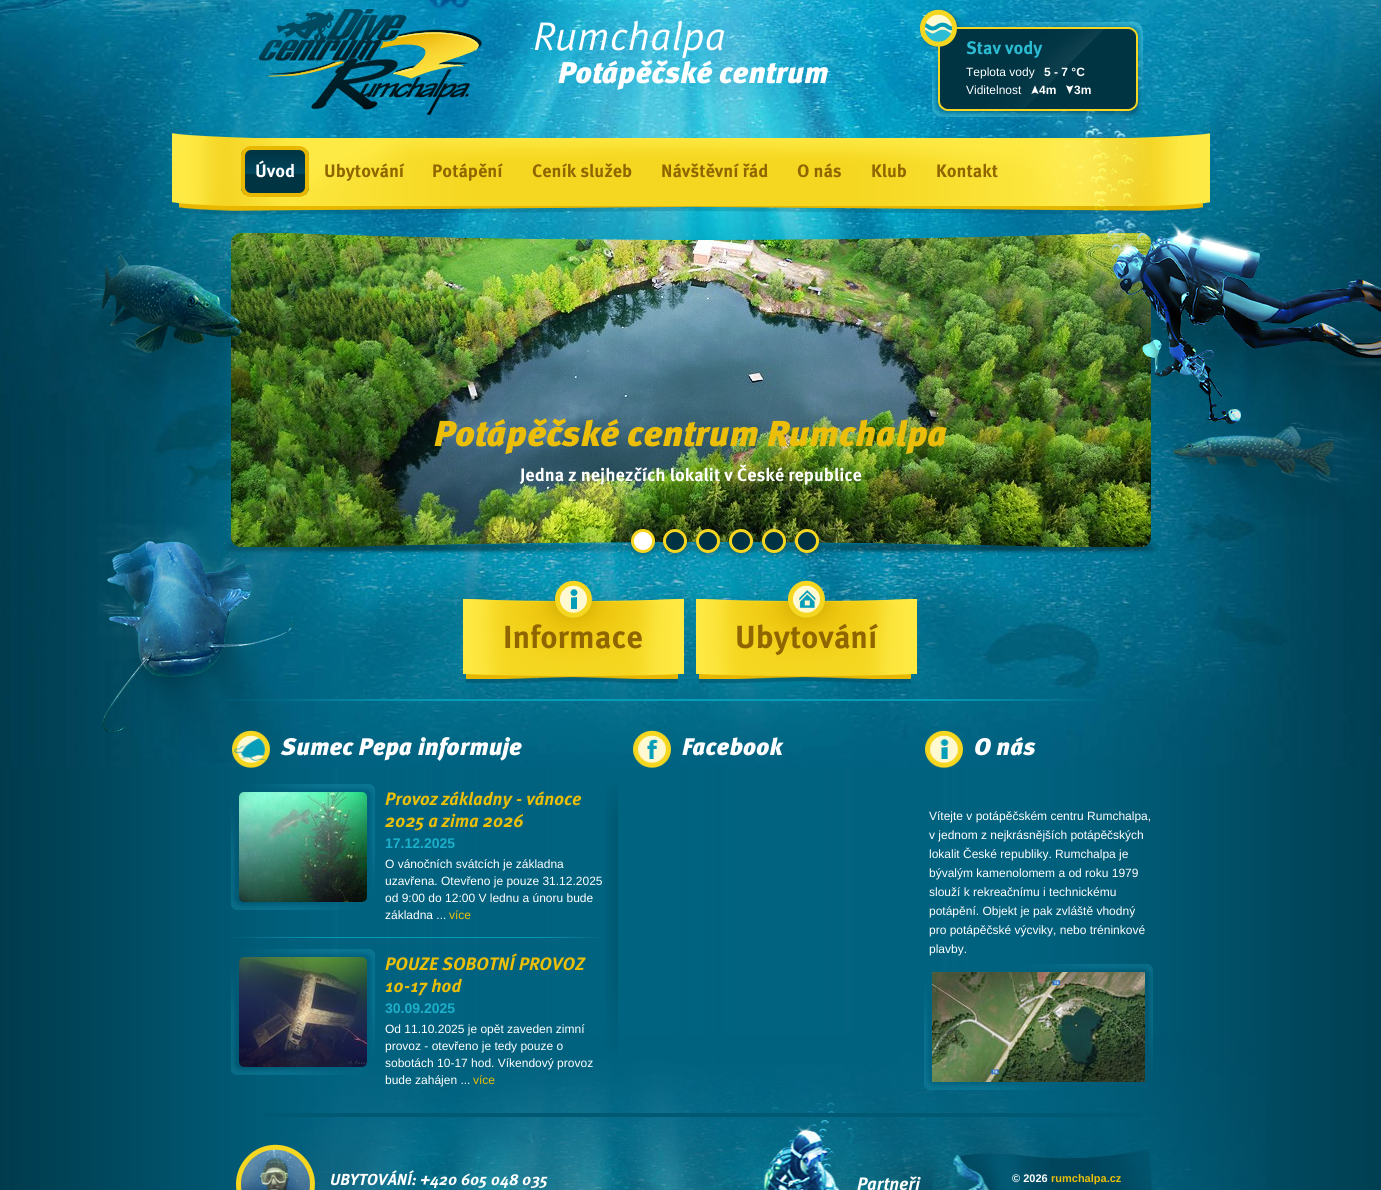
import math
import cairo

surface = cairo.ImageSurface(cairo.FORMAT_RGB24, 1381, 1190)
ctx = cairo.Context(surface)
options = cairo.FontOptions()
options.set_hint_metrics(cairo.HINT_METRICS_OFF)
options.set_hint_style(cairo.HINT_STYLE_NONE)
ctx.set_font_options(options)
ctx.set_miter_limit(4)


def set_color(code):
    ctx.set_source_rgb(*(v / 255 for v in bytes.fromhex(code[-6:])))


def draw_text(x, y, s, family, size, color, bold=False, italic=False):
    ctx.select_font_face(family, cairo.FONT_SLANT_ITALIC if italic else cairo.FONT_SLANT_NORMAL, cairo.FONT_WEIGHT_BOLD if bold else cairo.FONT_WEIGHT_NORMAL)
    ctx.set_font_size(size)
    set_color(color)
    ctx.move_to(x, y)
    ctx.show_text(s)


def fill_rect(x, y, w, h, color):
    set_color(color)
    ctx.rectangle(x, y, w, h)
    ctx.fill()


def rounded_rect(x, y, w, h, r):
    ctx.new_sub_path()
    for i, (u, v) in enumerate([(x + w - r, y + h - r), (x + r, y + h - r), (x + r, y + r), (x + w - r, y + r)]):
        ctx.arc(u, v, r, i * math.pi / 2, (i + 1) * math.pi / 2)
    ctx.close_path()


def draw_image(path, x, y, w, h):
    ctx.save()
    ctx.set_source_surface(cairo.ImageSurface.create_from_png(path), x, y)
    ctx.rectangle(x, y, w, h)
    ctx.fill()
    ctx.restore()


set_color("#ffffff")
ctx.paint()
draw_image("assets/img1.png", 0, 767, 1381, 423)
draw_image("assets/img2.png", 0, 0, 1381, 767)
draw_image("assets/img3.png", 281, 1035, 985, 155)
draw_image("assets/img4.png", 259, 9, 223, 106)
draw_text(533, 50, "Rumchalpa", "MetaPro", 40, "#ffffff", italic=True)
draw_text(558, 83, "Potápěčské centrum", "MetaPro Black", 30, "#ffffff", italic=True)
draw_image("assets/img5.png", 918, 8, 225, 111)
draw_text(966, 54, "Stav vody", "MetaPro", 18, "#2cbcd3", bold=True)
draw_text(966, 76, "Teplota vody", "Liberation Sans", 12, "#ffffff")
draw_text(1044, 76, "5 - 7 °C", "Liberation Sans", 12, "#ffffff", bold=True)
draw_text(966, 94, "Viditelnost", "Liberation Sans", 12, "#ffffff")
draw_image("assets/img6.png", 1031, 85, 8, 9)
draw_text(1039, 94, "4m", "Liberation Sans", 12, "#ffffff", bold=True)
draw_image("assets/img7.png", 1066, 85, 8, 9)
draw_text(1074, 94, "3m", "Liberation Sans", 12, "#ffffff", bold=True)
draw_image("assets/img11.png", 97, 524, 197, 239)
draw_image("assets/img16.png", 231, 233, 920, 314)
draw_image("assets/img15.png", 221, 240, 11, 302)
draw_image("assets/img8.png", 51, 248, 191, 209)
draw_image("assets/img10.png", 1172, 422, 209, 96)
draw_image("assets/img14.png", 221, 233, 940, 7)
draw_image("assets/img23.png", 1150, 240, 11, 302)
draw_image("assets/img9.png", 1080, 217, 301, 232)
draw_image("assets/img12.png", 172, 133, 1038, 82)
draw_image("assets/img13.png", 241, 150, 68, 45)
rounded_rect(243, 148, 64, 47, 8)
set_color("#e8b800")
ctx.set_line_width(4)
ctx.stroke()
draw_text(255, 177, "Úvod", "MetaPro", 18, "#ffffff", bold=True)
draw_text(324, 177, "Ubytování", "MetaPro", 18, "#8f6500", bold=True)
draw_text(432, 177, "Potápění", "MetaPro", 18, "#8f6500", bold=True)
draw_text(532, 177, "Ceník služeb", "MetaPro", 18, "#8f6500", bold=True)
draw_text(661, 177, "Návštěvní řád", "MetaPro", 18, "#8f6500", bold=True)
draw_text(797, 177, "O nás", "MetaPro", 18, "#8f6500", bold=True)
draw_text(871, 177, "Klub", "MetaPro", 18, "#8f6500", bold=True)
draw_text(936, 177, "Kontakt", "MetaPro", 18, "#8f6500", bold=True)
draw_text(434, 446, "Potápěčské centrum Rumchalpa", "MetaPro Black", 36, "#ebbf09", italic=True)
draw_text(520, 481, "Jedna z nejhezčích lokalit v České republice", "MetaPro", 18, "#ffffff", bold=True)
draw_image("assets/img24.png", 221, 542, 940, 16)
draw_image("assets/img17.png", 627, 529, 31, 30)
draw_image("assets/img18.png", 658, 528, 33, 31)
draw_image("assets/img19.png", 691, 529, 33, 30)
draw_image("assets/img20.png", 724, 529, 32, 30)
draw_image("assets/img21.png", 757, 527, 32, 32)
draw_image("assets/img22.png", 790, 529, 32, 30)
draw_image("assets/img25.png", 224, 699, 918, 2)
draw_image("assets/img26.png", 463, 580, 221, 103)
draw_text(503, 648, "Informace", "MetaPro", 32, "#8f6500", bold=True)
draw_image("assets/img27.png", 696, 580, 221, 103)
draw_text(735, 648, "Ubytování", "MetaPro", 32, "#8f6500", bold=True)
draw_image("assets/img28.png", 605, 785, 13, 268)
draw_image("assets/img29.png", 232, 730, 38, 38)
draw_text(281, 755, "Sumec Pepa informuje", "MetaPro Black", 24, "#ffffff", italic=True)
draw_image("assets/img30.png", 231, 937, 368, 1)
draw_image("assets/img31.png", 231, 784, 144, 126)
draw_image("assets/img32.png", 239, 792, 128, 110)
draw_text(385, 805, "Provoz základny - vánoce", "MetaPro", 18, "#ebbf09", bold=True, italic=True)
draw_text(385, 827, "2025 a zima 2026", "MetaPro", 18, "#ebbf09", bold=True, italic=True)
draw_text(385, 848, "17.12.2025", "Liberation Sans", 14, "#1dafca", bold=True)
draw_text(385, 868, "O vánočních svátcích je základna", "Liberation Sans", 12, "#ffffff")
draw_text(385, 885, "uzavřena. Otevřeno je pouze 31.12.2025", "Liberation Sans", 12, "#ffffff")
draw_text(385, 902, "od 9:00 do 12:00 V lednu a únoru bude", "Liberation Sans", 12, "#ffffff")
draw_text(385, 919, "základna ...", "Liberation Sans", 12, "#ffffff")
draw_text(449, 919, "více", "Liberation Sans", 12, "#ebbf09")
draw_image("assets/img33.png", 231, 949, 144, 126)
draw_image("assets/img34.png", 239, 957, 128, 110)
draw_text(385, 970, "POUZE SOBOTNÍ PROVOZ", "MetaPro", 18, "#ebbf09", bold=True, italic=True)
draw_text(385, 992, "10-17 hod", "MetaPro", 18, "#ebbf09", bold=True, italic=True)
draw_text(385, 1013, "30.09.2025", "Liberation Sans", 14, "#1dafca", bold=True)
draw_text(385, 1033, "Od 11.10.2025 je opět zaveden zimní", "Liberation Sans", 12, "#ffffff")
draw_text(385, 1050, "provoz - otevřeno je tedy pouze o", "Liberation Sans", 12, "#ffffff")
draw_text(385, 1067, "sobotách 10-17 hod. Víkendový provoz", "Liberation Sans", 12, "#ffffff")
draw_text(385, 1084, "bude zahájen ...", "Liberation Sans", 12, "#ffffff")
draw_text(473, 1084, "více", "Liberation Sans", 12, "#ebbf09")
draw_image("assets/img35.png", 901, 725, 6, 14)
draw_image("assets/img36.png", 633, 730, 38, 38)
draw_text(682, 755, "Facebook", "MetaPro Black", 24, "#ffffff", italic=True)
draw_image("assets/img37.png", 925, 730, 38, 38)
draw_text(974, 755, "O nás", "MetaPro Black", 24, "#ffffff", italic=True)
draw_text(929, 820, "Vítejte v potápěčském centru Rumchalpa,", "Liberation Sans", 12, "#ffffff")
draw_text(929, 839, "v jednom z nejkrásnějších potápěčských", "Liberation Sans", 12, "#ffffff")
draw_text(929, 858, "lokalit České republiky. Rumchalpa je", "Liberation Sans", 12, "#ffffff")
draw_text(929, 877, "bývalým kamenolomem a od roku 1979", "Liberation Sans", 12, "#ffffff")
draw_text(929, 896, "slouží k rekreačnímu i technickému", "Liberation Sans", 12, "#ffffff")
draw_text(929, 915, "potápění. Objekt je pak zvláště vhodný", "Liberation Sans", 12, "#ffffff")
draw_text(929, 934, "pro potápěčské výcviky, nebo tréninkové", "Liberation Sans", 12, "#ffffff")
draw_text(929, 953, "plavby.", "Liberation Sans", 12, "#ffffff")
draw_image("assets/img38.png", 924, 964, 229, 126)
fill_rect(263, 1113, 878, 4, "#005973")
draw_image("assets/img39.png", 236, 1144, 79, 46)
draw_text(330, 1185, "UBYTOVÁNÍ: +420 605 048 035", "MetaPro", 16, "#ffffff", bold=True, italic=True)
draw_text(857, 1190, "Partneři", "MetaPro", 18, "#ffffff", bold=True, italic=True)
draw_text(1012, 1182, "© 2026", "Liberation Sans", 11, "#ffffff", bold=True)
draw_text(1051, 1182, "rumchalpa.cz", "Liberation Sans", 11, "#ebbf09", bold=True)
surface.write_to_png("output.png")
